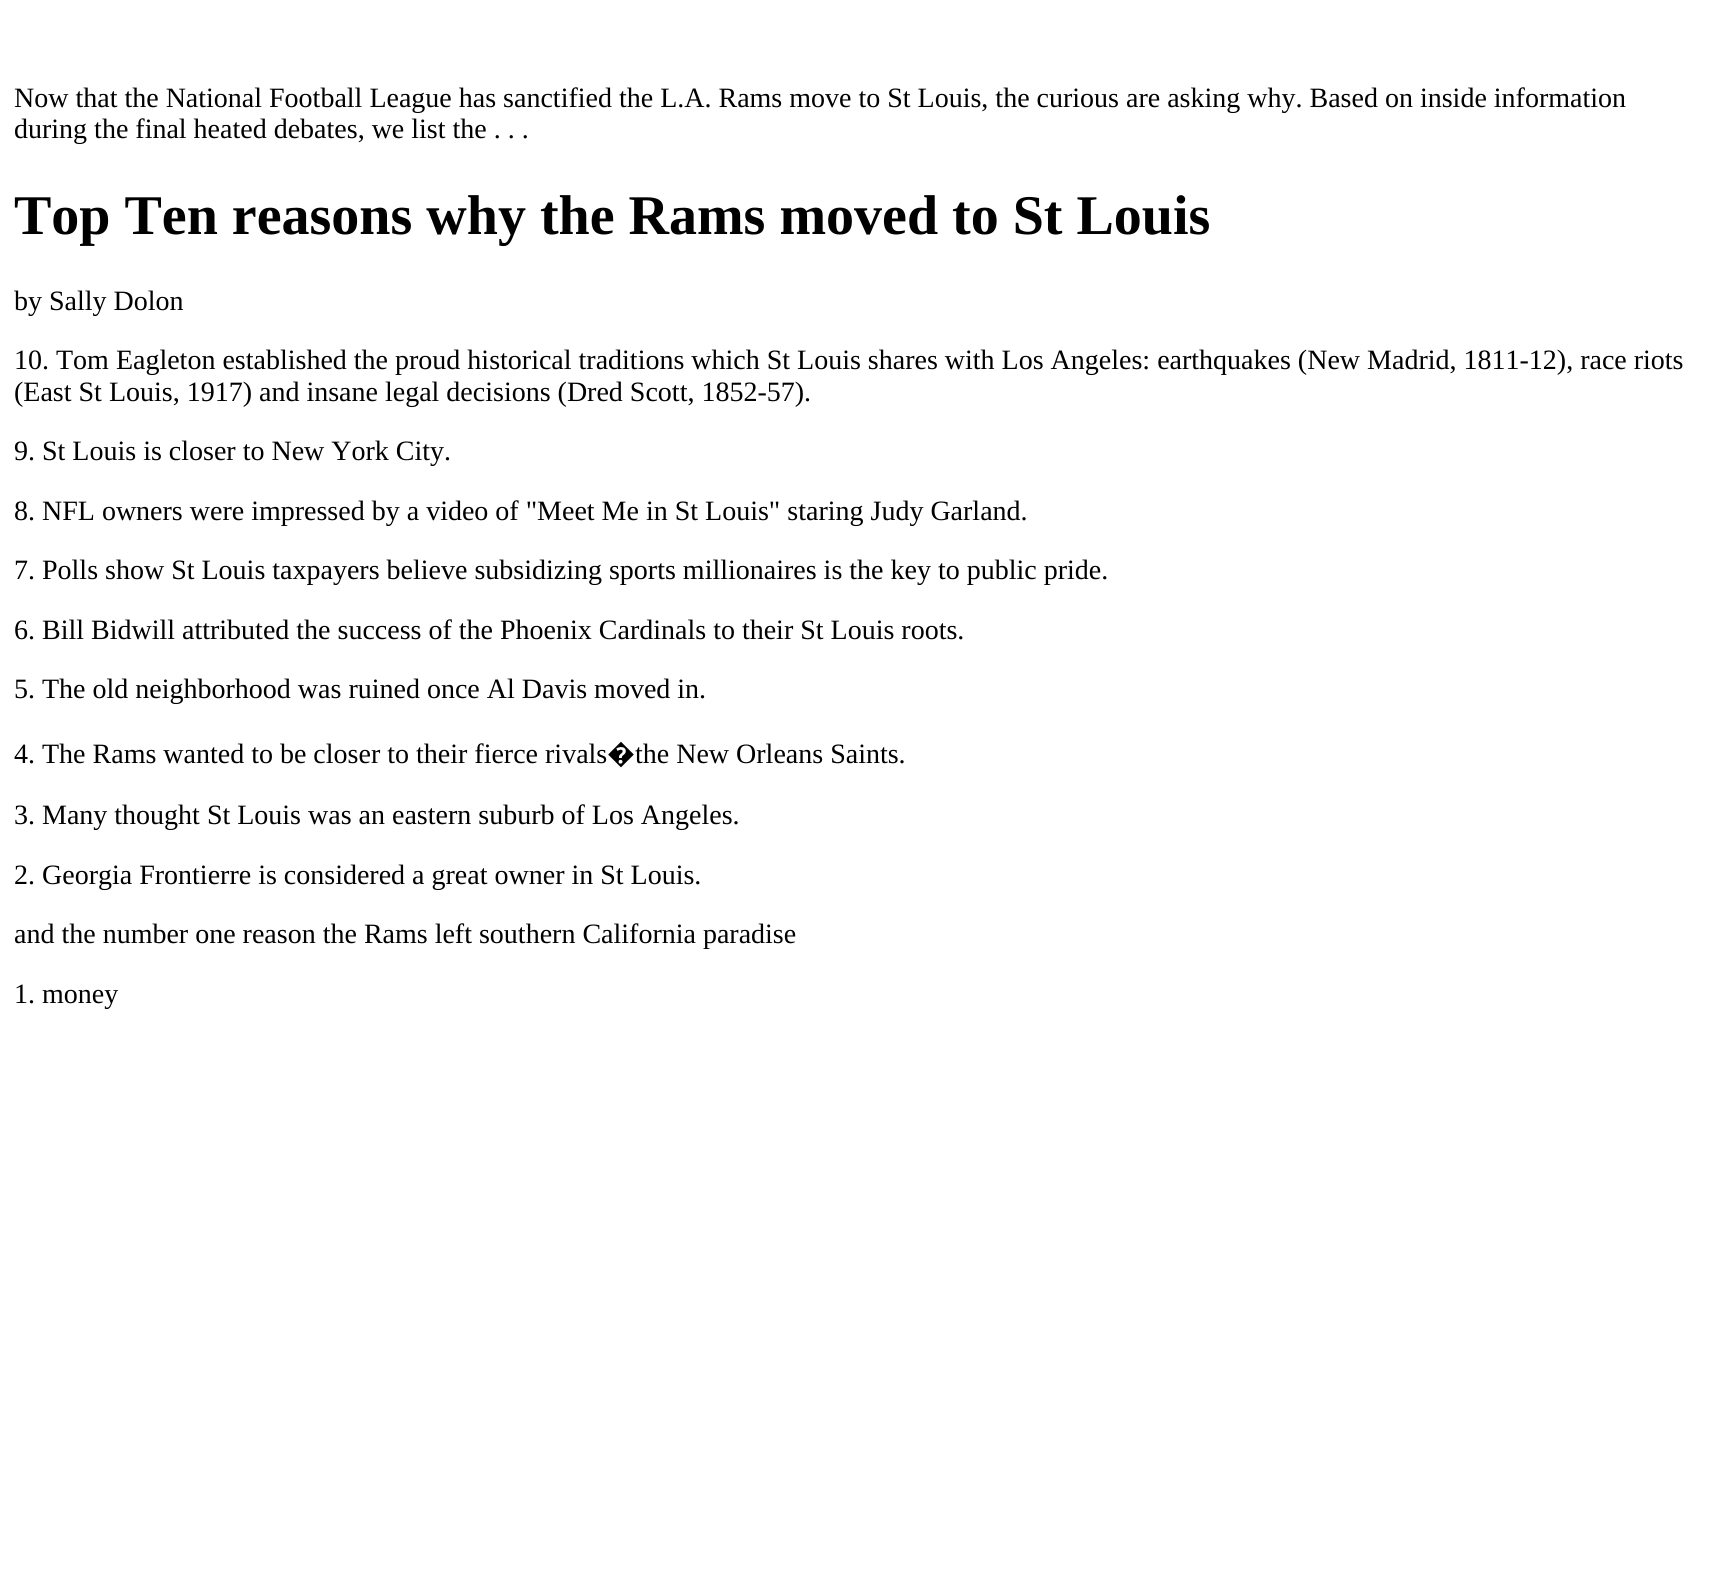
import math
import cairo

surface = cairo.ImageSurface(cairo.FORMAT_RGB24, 1715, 1584)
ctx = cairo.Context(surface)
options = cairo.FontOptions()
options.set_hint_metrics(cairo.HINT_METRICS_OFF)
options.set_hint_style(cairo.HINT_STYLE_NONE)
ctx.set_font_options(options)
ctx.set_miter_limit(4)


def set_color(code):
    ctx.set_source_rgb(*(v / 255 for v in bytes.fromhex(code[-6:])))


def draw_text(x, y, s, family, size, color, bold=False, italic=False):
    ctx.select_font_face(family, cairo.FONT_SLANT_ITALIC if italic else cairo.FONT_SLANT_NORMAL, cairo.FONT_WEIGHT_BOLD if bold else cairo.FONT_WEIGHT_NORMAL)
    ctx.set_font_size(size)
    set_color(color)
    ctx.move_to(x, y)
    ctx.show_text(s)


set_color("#ffffff")
ctx.paint()
draw_text(14, 107, "Now that the National Football League has sanctified the L.A. Rams move to St Louis, the curious are asking why. Based on inside information", "Liberation Serif", 28, "#000000")
draw_text(14, 138, "during the final heated debates, we list the . . .", "Liberation Serif", 28, "#000000")
draw_text(14, 234, "Top Ten reasons why the Rams moved to St Louis", "Liberation Serif", 56, "#000000", bold=True)
draw_text(14, 310, "by Sally Dolon", "Liberation Serif", 28, "#000000")
draw_text(14, 369, "10. Tom Eagleton established the proud historical traditions which St Louis shares with Los Angeles: earthquakes (New Madrid, 1811-12), race riots", "Liberation Serif", 28, "#000000")
draw_text(14, 401, "(East St Louis, 1917) and insane legal decisions (Dred Scott, 1852-57).", "Liberation Serif", 28, "#000000")
draw_text(14, 460, "9. St Louis is closer to New York City.", "Liberation Serif", 28, "#000000")
draw_text(14, 520, "8. NFL owners were impressed by a video of \"Meet Me in St Louis\" staring Judy Garland.", "Liberation Serif", 28, "#000000")
draw_text(14, 579, "7. Polls show St Louis taxpayers believe subsidizing sports millionaires is the key to public pride.", "Liberation Serif", 28, "#000000")
draw_text(14, 639, "6. Bill Bidwill attributed the success of the Phoenix Cardinals to their St Louis roots.", "Liberation Serif", 28, "#000000")
draw_text(14, 698, "5. The old neighborhood was ruined once Al Davis moved in.", "Liberation Serif", 28, "#000000")
draw_text(14, 763, "4. The Rams wanted to be closer to their fierce rivals", "Liberation Serif", 28, "#000000")
draw_text(607, 763, "�", "Noto Sans", 28, "#000000")
draw_text(635, 763, "the New Orleans Saints.", "Liberation Serif", 28, "#000000")
draw_text(14, 824, "3. Many thought St Louis was an eastern suburb of Los Angeles.", "Liberation Serif", 28, "#000000")
draw_text(14, 884, "2. Georgia Frontierre is considered a great owner in St Louis.", "Liberation Serif", 28, "#000000")
draw_text(14, 943, "and the number one reason the Rams left southern California paradise", "Liberation Serif", 28, "#000000")
draw_text(14, 1003, "1. money", "Liberation Serif", 28, "#000000")
surface.write_to_png("output.png")
